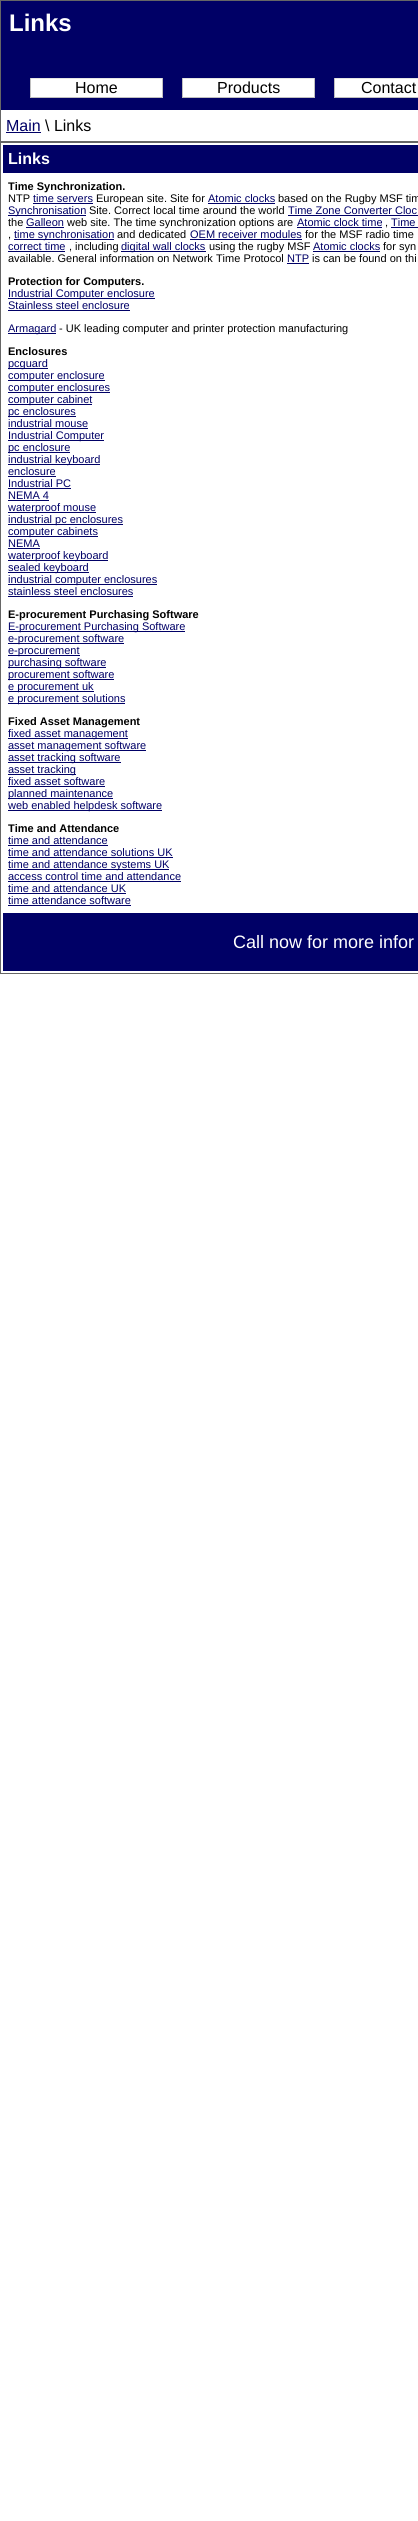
import math
import cairo

surface = cairo.ImageSurface(cairo.FORMAT_RGB24, 418, 2521)
ctx = cairo.Context(surface)
options = cairo.FontOptions()
options.set_hint_metrics(cairo.HINT_METRICS_OFF)
options.set_hint_style(cairo.HINT_STYLE_NONE)
ctx.set_font_options(options)
ctx.set_miter_limit(4)


def set_color(code):
    ctx.set_source_rgb(*(v / 255 for v in bytes.fromhex(code[-6:])))


def draw_text(x, y, s, family, size, color, bold=False, italic=False):
    ctx.select_font_face(family, cairo.FONT_SLANT_ITALIC if italic else cairo.FONT_SLANT_NORMAL, cairo.FONT_WEIGHT_BOLD if bold else cairo.FONT_WEIGHT_NORMAL)
    ctx.set_font_size(size)
    set_color(color)
    ctx.move_to(x, y)
    ctx.show_text(s)


def fill_rect(x, y, w, h, color):
    set_color(color)
    ctx.rectangle(x, y, w, h)
    ctx.fill()


set_color("#ffffff")
ctx.paint()
fill_rect(0, 0, 418, 1, "#666666")
fill_rect(0, 141, 418, 2, "#666666")
fill_rect(0, 0, 1, 142, "#666666")
fill_rect(1, 1, 417, 109, "#000066")
draw_text(9, 31, "Links", "Liberation Sans", 24, "#ffffff", bold=True)
fill_rect(31, 79, 131, 18, "#ffffff")
fill_rect(30, 78, 133, 1, "#e4e4e4")
fill_rect(162, 78, 1, 20, "#c0c0c0")
fill_rect(30, 97, 133, 1, "#c0c0c0")
fill_rect(30, 78, 1, 20, "#c0c0c0")
draw_text(75, 93, "Home", "Liberation Sans", 16, "#000000")
fill_rect(183, 79, 131, 18, "#ffffff")
fill_rect(182, 78, 133, 1, "#e4e4e4")
fill_rect(314, 78, 1, 20, "#c0c0c0")
fill_rect(182, 97, 133, 1, "#c0c0c0")
fill_rect(182, 78, 1, 20, "#c0c0c0")
draw_text(217, 93, "Products", "Liberation Sans", 16, "#000000")
fill_rect(335, 79, 83, 18, "#ffffff")
fill_rect(334, 78, 84, 1, "#e4e4e4")
fill_rect(334, 97, 84, 1, "#c0c0c0")
fill_rect(334, 78, 1, 20, "#c0c0c0")
draw_text(361, 93, "Contact", "Liberation Sans", 16, "#000000")
draw_text(6, 131, "Main", "Liberation Sans", 16, "#000066")
fill_rect(6, 132, 35, 1, "#000066")
draw_text(45, 131, "\\ Links", "Liberation Sans", 16, "#000000")
fill_rect(0, 973, 418, 1, "#666666")
fill_rect(0, 142, 1, 832, "#666666")
fill_rect(3, 145, 415, 28, "#000066")
draw_text(8, 164, "Links", "Liberation Sans", 16, "#ffffff", bold=True)
draw_text(8, 190, "Time Synchronization.", "Liberation Sans", 11, "#000000", bold=True)
draw_text(8, 202, "NTP", "Liberation Sans", 11, "#000000")
draw_text(33, 202, "time servers", "Liberation Sans", 11, "#000066")
fill_rect(33, 203, 60, 1, "#000066")
draw_text(96, 202, "European site. Site for", "Liberation Sans", 11, "#000000")
draw_text(208, 202, "Atomic clocks", "Liberation Sans", 11, "#000066")
fill_rect(208, 203, 67, 1, "#000066")
draw_text(278, 202, "based on the Rugby MSF tim", "Liberation Sans", 11, "#000000")
fill_rect(8, 215, 78, 1, "#000066")
draw_text(8, 214, "Synchronisation", "Liberation Sans", 11, "#000066")
draw_text(89, 214, "Site. Correct local time around the world", "Liberation Sans", 11, "#000000")
draw_text(288, 214, "Time Zone Converter Cloc", "Liberation Sans", 11, "#000066")
fill_rect(288, 215, 130, 1, "#000066")
draw_text(8, 226, "the", "Liberation Sans", 11, "#000000")
draw_text(26, 226, "Galleon", "Liberation Sans", 11, "#000066")
fill_rect(26, 227, 38, 1, "#000066")
draw_text(67, 226, "web site. The time synchronization options are", "Liberation Sans", 11, "#000000")
draw_text(297, 226, "Atomic clock time", "Liberation Sans", 11, "#000066")
fill_rect(297, 227, 85, 1, "#000066")
draw_text(385, 226, ",", "Liberation Sans", 11, "#000000")
draw_text(391, 226, "Time", "Liberation Sans", 11, "#000066")
fill_rect(391, 227, 27, 1, "#000066")
draw_text(8, 238, ",", "Liberation Sans", 11, "#000000")
fill_rect(14, 239, 100, 1, "#000066")
draw_text(14, 238, "time synchronisation", "Liberation Sans", 11, "#000066")
draw_text(117, 238, "and dedicated", "Liberation Sans", 11, "#000000")
draw_text(190, 238, "OEM receiver modules", "Liberation Sans", 11, "#000066")
fill_rect(190, 239, 112, 1, "#000066")
draw_text(305, 238, "for the MSF radio time", "Liberation Sans", 11, "#000000")
draw_text(8, 250, "correct time", "Liberation Sans", 11, "#000066")
fill_rect(8, 251, 57, 1, "#000066")
draw_text(69, 250, ", including", "Liberation Sans", 11, "#000000")
fill_rect(121, 251, 85, 1, "#000066")
draw_text(121, 250, "digital wall clocks", "Liberation Sans", 11, "#000066")
draw_text(209, 250, "using the rugby MSF", "Liberation Sans", 11, "#000000")
draw_text(313, 250, "Atomic clocks", "Liberation Sans", 11, "#000066")
fill_rect(313, 251, 67, 1, "#000066")
draw_text(383, 250, "for syn", "Liberation Sans", 11, "#000000")
draw_text(8, 262, "available. General information on Network Time Protocol", "Liberation Sans", 11, "#000000")
draw_text(287, 262, "NTP", "Liberation Sans", 11, "#000066")
fill_rect(287, 263, 22, 1, "#000066")
draw_text(312, 262, "is can be found on thi", "Liberation Sans", 11, "#000000")
draw_text(8, 285, "Protection for Computers.", "Liberation Sans", 11, "#000000", bold=True)
fill_rect(8, 298, 147, 1, "#000066")
draw_text(8, 297, "Industrial Computer enclosure", "Liberation Sans", 11, "#000066")
draw_text(8, 309, "Stainless steel enclosure", "Liberation Sans", 11, "#000066")
fill_rect(8, 310, 122, 1, "#000066")
fill_rect(8, 333, 48, 1, "#000066")
draw_text(8, 332, "Armagard", "Liberation Sans", 11, "#000066")
draw_text(59, 332, "- UK leading computer and printer protection manufacturing", "Liberation Sans", 11, "#000000")
draw_text(8, 355, "Enclosures", "Liberation Sans", 11, "#000000", bold=True)
fill_rect(8, 368, 40, 1, "#000066")
draw_text(8, 367, "pcguard", "Liberation Sans", 11, "#000066")
fill_rect(8, 380, 97, 1, "#000066")
draw_text(8, 379, "computer enclosure", "Liberation Sans", 11, "#000066")
fill_rect(8, 392, 102, 1, "#000066")
draw_text(8, 391, "computer enclosures", "Liberation Sans", 11, "#000066")
fill_rect(8, 404, 84, 1, "#000066")
draw_text(8, 403, "computer cabinet", "Liberation Sans", 11, "#000066")
fill_rect(8, 416, 68, 1, "#000066")
draw_text(8, 415, "pc enclosures", "Liberation Sans", 11, "#000066")
draw_text(8, 427, "industrial mouse", "Liberation Sans", 11, "#000066")
fill_rect(8, 428, 80, 1, "#000066")
fill_rect(8, 440, 96, 1, "#000066")
draw_text(8, 439, "Industrial Computer", "Liberation Sans", 11, "#000066")
fill_rect(8, 452, 62, 1, "#000066")
draw_text(8, 451, "pc enclosure", "Liberation Sans", 11, "#000066")
fill_rect(8, 464, 92, 1, "#000066")
draw_text(8, 463, "industrial keyboard", "Liberation Sans", 11, "#000066")
draw_text(8, 475, "enclosure", "Liberation Sans", 11, "#000066")
fill_rect(8, 476, 48, 1, "#000066")
draw_text(8, 487, "Industrial PC", "Liberation Sans", 11, "#000066")
fill_rect(8, 488, 63, 1, "#000066")
draw_text(8, 499, "NEMA 4", "Liberation Sans", 11, "#000066")
fill_rect(8, 500, 41, 1, "#000066")
fill_rect(8, 512, 88, 1, "#000066")
draw_text(8, 511, "waterproof mouse", "Liberation Sans", 11, "#000066")
fill_rect(8, 524, 115, 1, "#000066")
draw_text(8, 523, "industrial pc enclosures", "Liberation Sans", 11, "#000066")
fill_rect(8, 536, 90, 1, "#000066")
draw_text(8, 535, "computer cabinets", "Liberation Sans", 11, "#000066")
draw_text(8, 547, "NEMA", "Liberation Sans", 11, "#000066")
fill_rect(8, 548, 32, 1, "#000066")
fill_rect(8, 560, 100, 1, "#000066")
draw_text(8, 559, "waterproof keyboard", "Liberation Sans", 11, "#000066")
fill_rect(8, 572, 81, 1, "#000066")
draw_text(8, 571, "sealed keyboard", "Liberation Sans", 11, "#000066")
fill_rect(8, 584, 149, 1, "#000066")
draw_text(8, 583, "industrial computer enclosures", "Liberation Sans", 11, "#000066")
draw_text(8, 595, "stainless steel enclosures", "Liberation Sans", 11, "#000066")
fill_rect(8, 596, 125, 1, "#000066")
draw_text(8, 618, "E-procurement Purchasing Software", "Liberation Sans", 11, "#000000", bold=True)
fill_rect(8, 631, 177, 1, "#000066")
draw_text(8, 630, "E-procurement Purchasing Software", "Liberation Sans", 11, "#000066")
fill_rect(8, 643, 116, 1, "#000066")
draw_text(8, 642, "e-procurement software", "Liberation Sans", 11, "#000066")
fill_rect(8, 655, 72, 1, "#000066")
draw_text(8, 654, "e-procurement", "Liberation Sans", 11, "#000066")
fill_rect(8, 667, 98, 1, "#000066")
draw_text(8, 666, "purchasing software", "Liberation Sans", 11, "#000066")
fill_rect(8, 679, 106, 1, "#000066")
draw_text(8, 678, "procurement software", "Liberation Sans", 11, "#000066")
fill_rect(8, 691, 86, 1, "#000066")
draw_text(8, 690, "e procurement uk", "Liberation Sans", 11, "#000066")
fill_rect(8, 703, 117, 1, "#000066")
draw_text(8, 702, "e procurement solutions", "Liberation Sans", 11, "#000066")
draw_text(8, 725, "Fixed Asset Management", "Liberation Sans", 11, "#000000", bold=True)
fill_rect(8, 738, 120, 1, "#000066")
draw_text(8, 737, "fixed asset management", "Liberation Sans", 11, "#000066")
fill_rect(8, 750, 138, 1, "#000066")
draw_text(8, 749, "asset management software", "Liberation Sans", 11, "#000066")
fill_rect(8, 762, 113, 1, "#000066")
draw_text(8, 761, "asset tracking software", "Liberation Sans", 11, "#000066")
fill_rect(8, 774, 68, 1, "#000066")
draw_text(8, 773, "asset tracking", "Liberation Sans", 11, "#000066")
draw_text(8, 785, "fixed asset software", "Liberation Sans", 11, "#000066")
fill_rect(8, 786, 97, 1, "#000066")
fill_rect(8, 798, 105, 1, "#000066")
draw_text(8, 797, "planned maintenance", "Liberation Sans", 11, "#000066")
fill_rect(8, 810, 154, 1, "#000066")
draw_text(8, 809, "web enabled helpdesk software", "Liberation Sans", 11, "#000066")
draw_text(8, 832, "Time and Attendance", "Liberation Sans", 11, "#000000", bold=True)
draw_text(8, 844, "time and attendance", "Liberation Sans", 11, "#000066")
fill_rect(8, 845, 100, 1, "#000066")
draw_text(8, 856, "time and attendance solutions UK", "Liberation Sans", 11, "#000066")
fill_rect(8, 857, 165, 1, "#000066")
fill_rect(8, 869, 161, 1, "#000066")
draw_text(8, 868, "time and attendance systems UK", "Liberation Sans", 11, "#000066")
draw_text(8, 880, "access control time and attendance", "Liberation Sans", 11, "#000066")
fill_rect(8, 881, 173, 1, "#000066")
draw_text(8, 892, "time and attendance UK", "Liberation Sans", 11, "#000066")
fill_rect(8, 893, 118, 1, "#000066")
draw_text(8, 904, "time attendance software", "Liberation Sans", 11, "#000066")
fill_rect(8, 905, 123, 1, "#000066")
fill_rect(3, 913, 415, 58, "#000066")
draw_text(233, 948, "Call now for more infor", "Liberation Sans", 18, "#ffffff")
surface.write_to_png("output.png")
